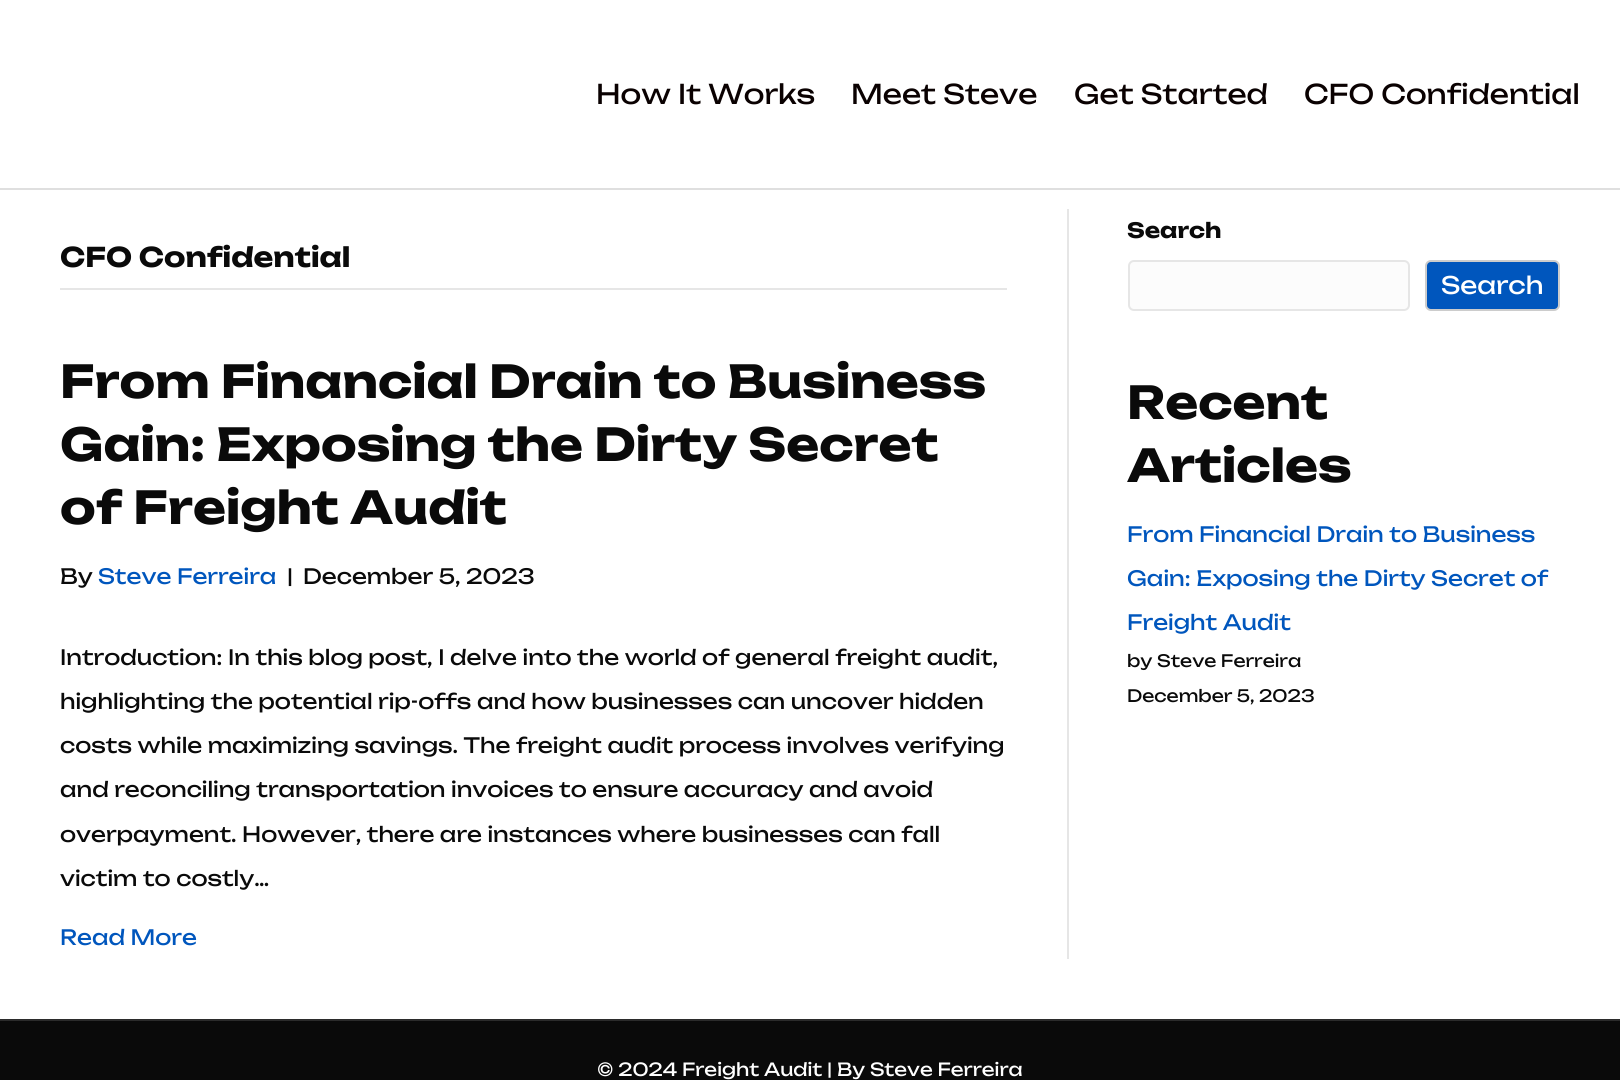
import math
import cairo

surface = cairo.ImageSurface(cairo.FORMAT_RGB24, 1620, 1080)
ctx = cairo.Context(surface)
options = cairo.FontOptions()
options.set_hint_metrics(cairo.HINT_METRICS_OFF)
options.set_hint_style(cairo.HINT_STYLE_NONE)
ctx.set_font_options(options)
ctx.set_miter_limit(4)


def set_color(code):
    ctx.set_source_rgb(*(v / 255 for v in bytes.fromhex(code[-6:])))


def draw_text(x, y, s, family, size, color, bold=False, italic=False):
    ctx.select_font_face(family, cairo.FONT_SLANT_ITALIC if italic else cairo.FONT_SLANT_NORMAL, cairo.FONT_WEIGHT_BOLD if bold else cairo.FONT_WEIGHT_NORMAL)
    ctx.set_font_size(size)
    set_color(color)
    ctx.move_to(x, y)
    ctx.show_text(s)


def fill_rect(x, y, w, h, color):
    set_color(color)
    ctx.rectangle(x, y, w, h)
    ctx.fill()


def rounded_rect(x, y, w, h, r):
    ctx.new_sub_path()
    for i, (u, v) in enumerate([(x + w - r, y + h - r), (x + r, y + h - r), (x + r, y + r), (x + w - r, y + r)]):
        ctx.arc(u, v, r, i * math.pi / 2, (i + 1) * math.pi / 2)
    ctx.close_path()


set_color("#ffffff")
ctx.paint()
fill_rect(0, 188, 1620, 2, "#dfdfdf")
draw_text(596, 104, "How It Works", "Unbounded", 27, "#0a0101")
draw_text(851, 104, "Meet Steve", "Unbounded", 27, "#0a0101")
draw_text(1074, 104, "Get Started", "Unbounded", 27, "#0a0101")
draw_text(1304, 104, "CFO Confidential", "Unbounded", 27, "#0a0101")
fill_rect(1067, 209, 2, 750, "#e6e6e6")
fill_rect(60, 288, 947, 2, "#e6e6e6")
draw_text(60, 267, "CFO Confidential", "Unbounded", 27, "#0a0a0a", bold=True)
draw_text(60, 398, "From Financial Drain to Business", "Unbounded", 45, "#0a0a0a", bold=True)
draw_text(60, 461, "Gain: Exposing the Dirty Secret", "Unbounded", 45, "#0a0a0a", bold=True)
draw_text(60, 524, "of Freight Audit", "Unbounded", 45, "#0a0a0a", bold=True)
draw_text(60, 584, "By", "Unbounded", 21, "#0a0a0a")
draw_text(98, 584, "Steve Ferreira", "Unbounded", 21, "#0056bd")
draw_text(287, 584, "|", "Unbounded", 21, "#0a0a0a")
draw_text(303, 584, "December 5, 2023", "Unbounded", 21, "#0a0a0a")
draw_text(60, 665, "Introduction: In this blog post, I delve into the world of general freight audit,", "Unbounded", 21, "#0a0a0a")
draw_text(60, 709, "highlighting the potential rip-offs and how businesses can uncover hidden", "Unbounded", 21, "#0a0a0a")
draw_text(60, 753, "costs while maximizing savings. The freight audit process involves verifying", "Unbounded", 21, "#0a0a0a")
draw_text(60, 797, "and reconciling transportation invoices to ensure accuracy and avoid", "Unbounded", 21, "#0a0a0a")
draw_text(60, 842, "overpayment. However, there are instances where businesses can fall", "Unbounded", 21, "#0a0a0a")
draw_text(60, 886, "victim to costly…", "Unbounded", 21, "#0a0a0a")
draw_text(60, 945, "Read More", "Unbounded", 21, "#0056bd")
draw_text(1127, 238, "Search", "Unbounded", 21, "#0a0a0a", bold=True)
set_color("#fcfcfc")
rounded_rect(1129, 261, 280, 49, 5)
ctx.fill_preserve()
set_color("#e6e6e6")
ctx.stroke()
set_color("#0056bd")
rounded_rect(1426, 261, 133, 49, 5)
ctx.fill_preserve()
set_color("#cccccc")
ctx.stroke()
draw_text(1441, 294, "Search", "Unbounded", 24, "#ffffff")
draw_text(1127, 419, "Recent", "Unbounded", 45, "#0a0a0a", bold=True)
draw_text(1127, 482, "Articles", "Unbounded", 45, "#0a0a0a", bold=True)
draw_text(1127, 542, "From Financial Drain to Business", "Unbounded", 21, "#0056bd")
draw_text(1127, 586, "Gain: Exposing the Dirty Secret of", "Unbounded", 21, "#0056bd")
draw_text(1127, 630, "Freight Audit", "Unbounded", 21, "#0056bd")
draw_text(1127, 667, "by Steve Ferreira", "Unbounded", 17, "#0a0a0a")
draw_text(1127, 702, "December 5, 2023", "Unbounded", 17, "#0a0a0a")
fill_rect(0, 1021, 1620, 59, "#0a0a0a")
fill_rect(0, 1019, 1620, 2, "#2b2b2b")
draw_text(597, 1076, "© 2024 Freight Audit | By Steve Ferreira", "Unbounded", 18, "#ffffff")
surface.write_to_png("output.png")
